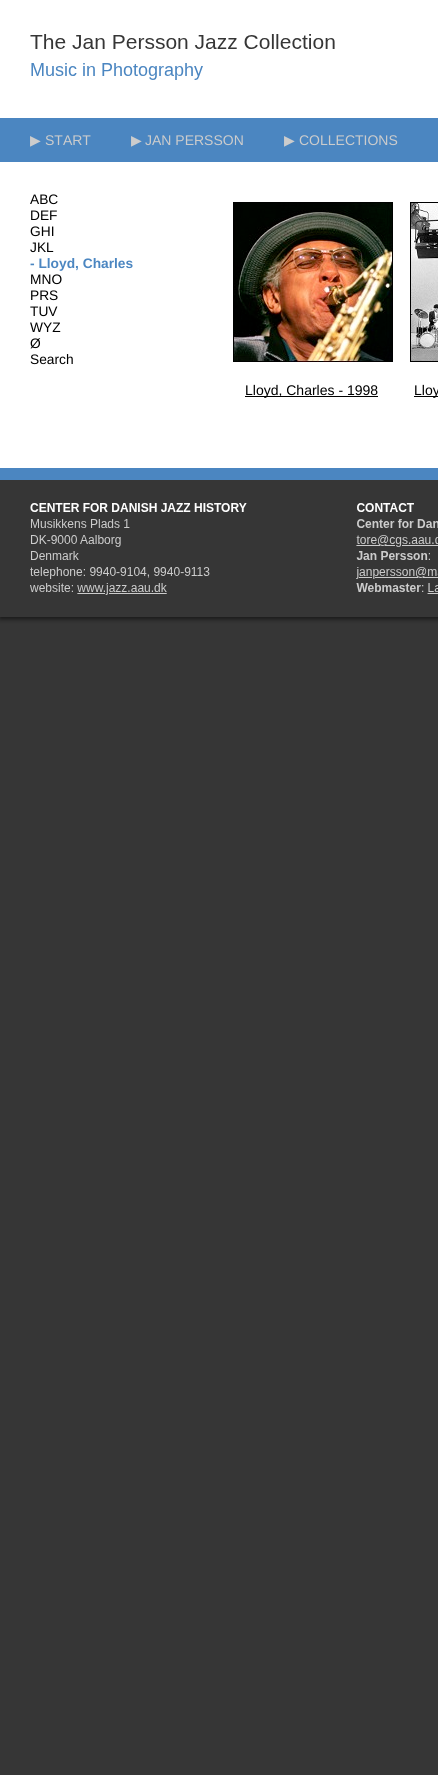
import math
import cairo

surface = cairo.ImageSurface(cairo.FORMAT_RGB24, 438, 1775)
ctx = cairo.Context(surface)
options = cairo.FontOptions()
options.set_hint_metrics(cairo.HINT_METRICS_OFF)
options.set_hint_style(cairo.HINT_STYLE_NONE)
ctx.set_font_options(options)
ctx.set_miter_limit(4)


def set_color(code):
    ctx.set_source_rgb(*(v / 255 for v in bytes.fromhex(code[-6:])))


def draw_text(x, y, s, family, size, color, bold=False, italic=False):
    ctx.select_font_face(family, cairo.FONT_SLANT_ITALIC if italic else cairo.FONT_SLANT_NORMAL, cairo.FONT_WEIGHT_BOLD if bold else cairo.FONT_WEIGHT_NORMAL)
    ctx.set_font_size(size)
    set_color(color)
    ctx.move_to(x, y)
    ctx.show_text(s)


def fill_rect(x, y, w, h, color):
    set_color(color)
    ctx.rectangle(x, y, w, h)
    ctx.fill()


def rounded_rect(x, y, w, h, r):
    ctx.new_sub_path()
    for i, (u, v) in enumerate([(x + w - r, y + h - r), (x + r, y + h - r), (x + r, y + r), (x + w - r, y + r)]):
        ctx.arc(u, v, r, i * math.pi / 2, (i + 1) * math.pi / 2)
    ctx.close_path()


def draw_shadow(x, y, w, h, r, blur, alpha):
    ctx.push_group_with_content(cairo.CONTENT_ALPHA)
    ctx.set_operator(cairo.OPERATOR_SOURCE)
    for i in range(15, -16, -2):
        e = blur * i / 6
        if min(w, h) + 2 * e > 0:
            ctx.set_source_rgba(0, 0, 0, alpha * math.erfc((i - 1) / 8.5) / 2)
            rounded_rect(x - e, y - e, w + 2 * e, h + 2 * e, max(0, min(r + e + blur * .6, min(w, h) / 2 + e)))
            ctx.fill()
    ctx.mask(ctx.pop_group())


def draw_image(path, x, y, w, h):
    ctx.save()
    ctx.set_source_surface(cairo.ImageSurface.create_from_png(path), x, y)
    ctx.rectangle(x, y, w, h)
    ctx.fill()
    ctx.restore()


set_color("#363636")
ctx.paint()
set_color("#000000")
draw_shadow(0, 2, 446, 617, 0, 2.5, 0.6)
fill_rect(0, 0, 438, 468, "#ffffff")
draw_image("assets/img1.png", 30, 34, 305, 46)
fill_rect(0, 118, 438, 44, "#4b86c1")
draw_text(30, 145, "▶", "DejaVu Sans", 14, "#cccccc")
draw_text(45, 145, "START", "Liberation Sans", 14, "#cccccc")
draw_text(131, 145, "▶", "DejaVu Sans", 14, "#cccccc")
draw_text(145, 145, "JAN PERSSON", "Liberation Sans", 14, "#cccccc")
draw_text(284, 145, "▶", "DejaVu Sans", 14, "#cccccc")
draw_text(299, 145, "COLLECTIONS", "Liberation Sans", 14, "#cccccc")
draw_text(30, 204, "ABC", "Liberation Sans", 13.75, "#000000")
draw_text(30, 220, "DEF", "Liberation Sans", 13.75, "#000000")
draw_text(30, 236, "GHI", "Liberation Sans", 13.75, "#000000")
draw_text(30, 252, "JKL", "Liberation Sans", 13.75, "#000000")
draw_text(30, 268, "- Lloyd, Charles", "Liberation Sans", 13.75, "#4b86c1", bold=True)
draw_text(30, 284, "MNO", "Liberation Sans", 13.75, "#000000")
draw_text(30, 300, "PRS", "Liberation Sans", 13.75, "#000000")
draw_text(30, 316, "TUV", "Liberation Sans", 13.75, "#000000")
draw_text(30, 332, "WYZ", "Liberation Sans", 13.75, "#000000")
draw_text(30, 348, "Ø", "Liberation Sans", 13.75, "#000000")
draw_text(30, 364, "Search", "Liberation Sans", 13.75, "#000000")
draw_image("assets/img2.png", 233, 202, 160, 160)
fill_rect(245, 396, 133, 1, "#000000")
draw_text(245, 395, "Lloyd, Charles - 1998", "Liberation Sans", 14, "#000000")
draw_image("assets/img3.png", 410, 202, 28, 160)
fill_rect(414, 396, 24, 1, "#000000")
draw_text(414, 395, "Lloy", "Liberation Sans", 14, "#000000")
fill_rect(0, 468, 438, 12, "#4b86c1")
fill_rect(0, 480, 438, 137, "#363636")
draw_image("assets/img4.png", 30, 503, 408, 92)
surface.write_to_png("output.png")
